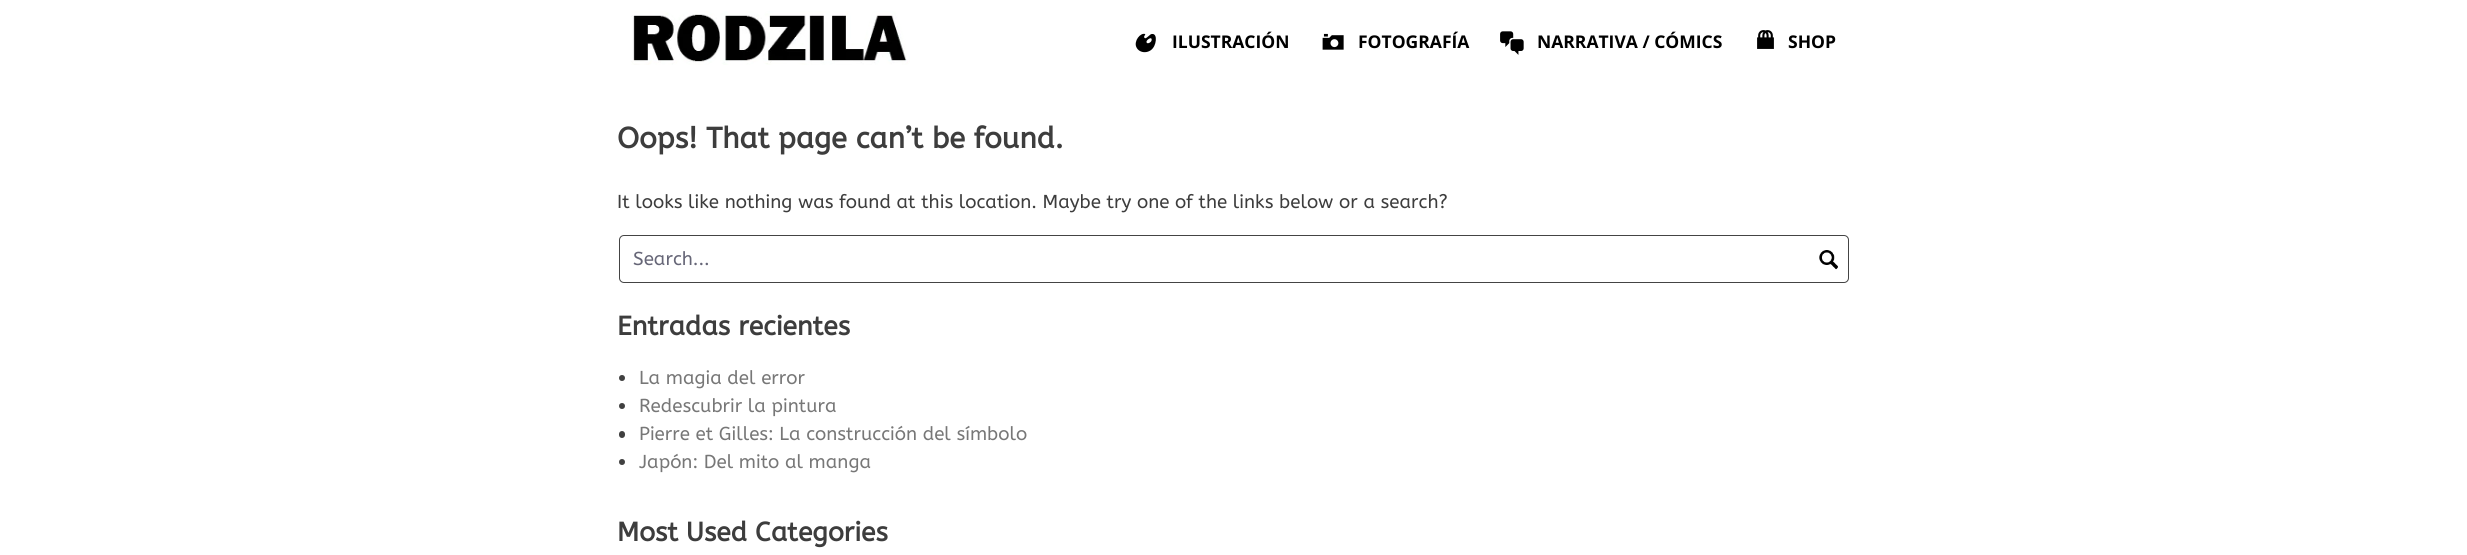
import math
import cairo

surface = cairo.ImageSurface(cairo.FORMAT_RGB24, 2467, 555)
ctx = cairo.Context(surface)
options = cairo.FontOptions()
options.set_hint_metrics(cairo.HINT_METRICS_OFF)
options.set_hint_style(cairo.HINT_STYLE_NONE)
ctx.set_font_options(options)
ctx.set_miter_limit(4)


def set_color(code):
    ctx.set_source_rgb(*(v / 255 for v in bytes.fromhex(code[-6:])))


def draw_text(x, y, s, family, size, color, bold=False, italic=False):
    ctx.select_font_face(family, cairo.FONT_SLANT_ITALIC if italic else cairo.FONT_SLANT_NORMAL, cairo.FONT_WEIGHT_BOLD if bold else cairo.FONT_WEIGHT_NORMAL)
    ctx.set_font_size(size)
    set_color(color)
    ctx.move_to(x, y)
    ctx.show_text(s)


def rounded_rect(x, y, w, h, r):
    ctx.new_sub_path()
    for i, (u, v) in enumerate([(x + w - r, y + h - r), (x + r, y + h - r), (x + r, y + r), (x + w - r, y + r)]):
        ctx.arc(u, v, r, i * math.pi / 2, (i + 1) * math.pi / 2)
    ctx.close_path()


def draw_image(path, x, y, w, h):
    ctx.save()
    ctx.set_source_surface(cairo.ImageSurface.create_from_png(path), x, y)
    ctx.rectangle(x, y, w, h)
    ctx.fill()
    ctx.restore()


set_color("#ffffff")
ctx.paint()
draw_image("assets/img1.png", 631, 11, 279, 54)
draw_image("assets/img2.png", 1135, 33, 21, 20)
draw_text(1172, 48, "ILUSTRACIÓN", "Open Sans", 17.5, "#000000", bold=True)
draw_image("assets/img3.png", 1322, 33, 22, 17)
draw_text(1358, 48, "FOTOGRAFÍA", "Open Sans", 17.5, "#000000", bold=True)
draw_image("assets/img4.png", 1500, 31, 24, 24)
draw_text(1537, 48, "NARRATIVA / CÓMICS", "Open Sans", 17.5, "#000000", bold=True)
draw_image("assets/img5.png", 1757, 30, 17, 19)
draw_text(1788, 48, "SHOP", "Open Sans", 17.5, "#000000", bold=True)
draw_text(617, 148, "Oops! That page can’t be found.", "ABeeZee", 29.25, "#3d3d3d", bold=True)
draw_text(617, 208, "It looks like nothing was found at this location. Maybe try one of the links below or a search?", "ABeeZee", 18.75, "#3d3d3d")
rounded_rect(619.5, 235.5, 1229, 47, 4.5)
set_color("#444444")
ctx.set_line_width(1)
ctx.stroke()
draw_text(633, 265, "Search...", "ABeeZee", 18.75, "#666677")
draw_image("assets/img6.png", 1819, 250, 19, 20)
draw_text(617, 335, "Entradas recientes", "ABeeZee", 26.6, "#3d3d3d", bold=True)
set_color("#404040")
ctx.new_path()
ctx.arc(622, 378, 3, 0, 2 * math.pi)
ctx.fill()
draw_text(639, 384, "La magia del error", "ABeeZee", 18.75, "#777777")
set_color("#404040")
ctx.new_path()
ctx.arc(622, 406, 3, 0, 2 * math.pi)
ctx.fill()
draw_text(639, 412, "Redescubrir la pintura", "ABeeZee", 18.75, "#777777")
set_color("#404040")
rounded_rect(619, 431, 6, 7, 3)
ctx.fill()
draw_text(639, 440, "Pierre et Gilles: La construcción del símbolo", "ABeeZee", 18.75, "#777777")
set_color("#404040")
ctx.new_path()
ctx.arc(622, 462, 3, 0, 2 * math.pi)
ctx.fill()
draw_text(639, 468, "Japón: Del mito al manga", "ABeeZee", 18.75, "#777777")
draw_text(617, 541, "Most Used Categories", "ABeeZee", 26.6, "#3d3d3d", bold=True)
surface.write_to_png("output.png")
